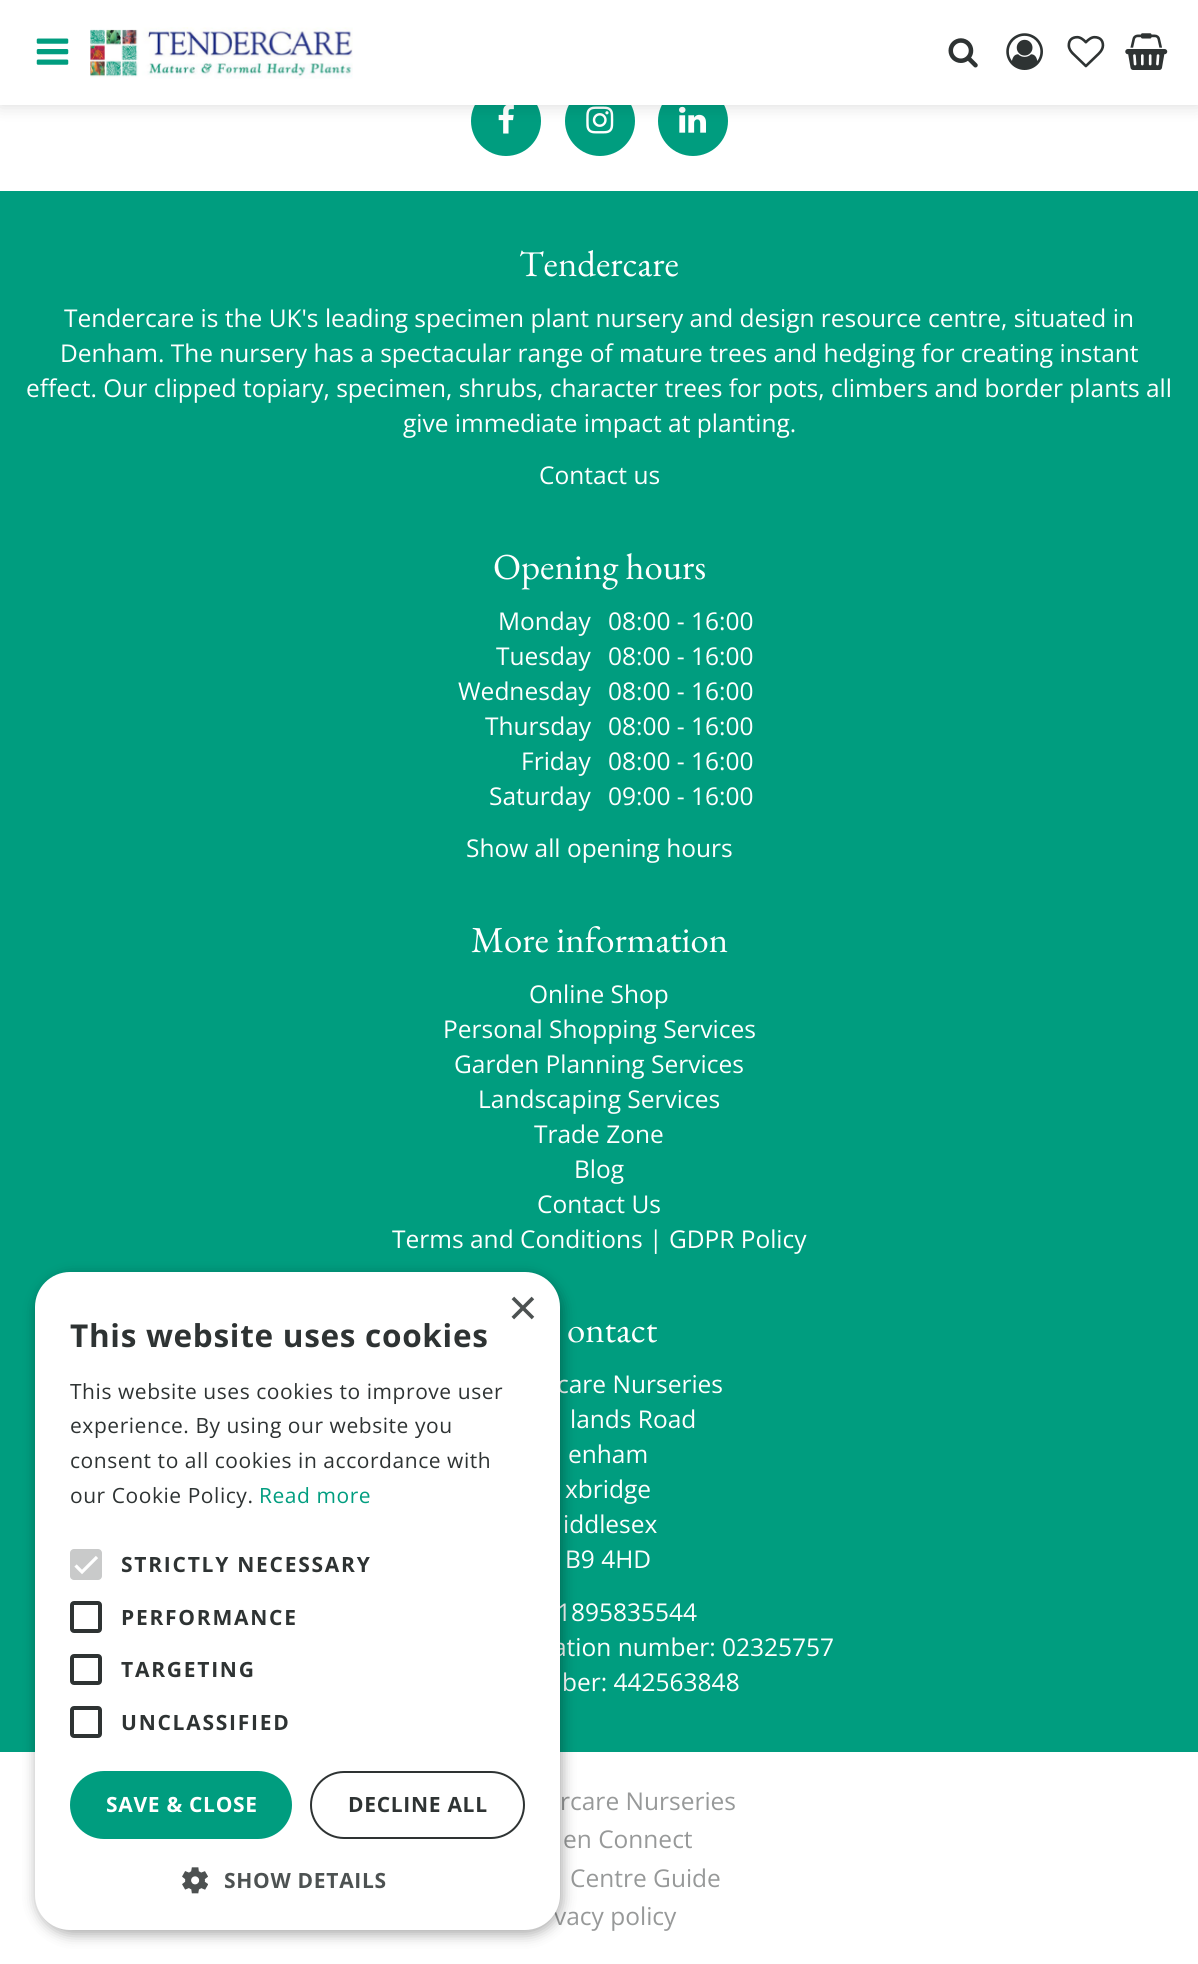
import math
import cairo

surface = cairo.ImageSurface(cairo.FORMAT_RGB24, 1198, 1964)
ctx = cairo.Context(surface)
options = cairo.FontOptions()
options.set_hint_metrics(cairo.HINT_METRICS_OFF)
options.set_hint_style(cairo.HINT_STYLE_NONE)
ctx.set_font_options(options)
ctx.set_miter_limit(4)


def set_color(code):
    ctx.set_source_rgb(*(v / 255 for v in bytes.fromhex(code[-6:])))


def draw_text(x, y, s, family, size, color, bold=False, italic=False):
    ctx.select_font_face(family, cairo.FONT_SLANT_ITALIC if italic else cairo.FONT_SLANT_NORMAL, cairo.FONT_WEIGHT_BOLD if bold else cairo.FONT_WEIGHT_NORMAL)
    ctx.set_font_size(size)
    set_color(color)
    ctx.move_to(x, y)
    ctx.show_text(s)


def draw_spaced(x, y, s, letter, word):
    ctx.move_to(x, y)
    for ch in s:
        ctx.show_text(ch)
        ctx.rel_move_to(letter + word * (ch == ' '), 0)


def fill_rect(x, y, w, h, color):
    set_color(color)
    ctx.rectangle(x, y, w, h)
    ctx.fill()


def rounded_rect(x, y, w, h, r):
    ctx.new_sub_path()
    for i, (u, v) in enumerate([(x + w - r, y + h - r), (x + r, y + h - r), (x + r, y + r), (x + w - r, y + r)]):
        ctx.arc(u, v, r, i * math.pi / 2, (i + 1) * math.pi / 2)
    ctx.close_path()


def draw_shadow(x, y, w, h, r, blur, alpha):
    ctx.push_group_with_content(cairo.CONTENT_ALPHA)
    ctx.set_operator(cairo.OPERATOR_SOURCE)
    for i in range(15, -16, -2):
        e = blur * i / 6
        if min(w, h) + 2 * e > 0:
            ctx.set_source_rgba(0, 0, 0, alpha * math.erfc((i - 1) / 8.5) / 2)
            rounded_rect(x - e, y - e, w + 2 * e, h + 2 * e, max(0, min(r + e + blur * .6, min(w, h) / 2 + e)))
            ctx.fill()
    ctx.mask(ctx.pop_group())


def draw_image(path, x, y, w, h):
    ctx.save()
    ctx.set_source_surface(cairo.ImageSurface.create_from_png(path), x, y)
    ctx.rectangle(x, y, w, h)
    ctx.fill()
    ctx.restore()


set_color("#009d7f")
ctx.paint()
fill_rect(0, 105, 1198, 86, "#ffffff")
set_color("#009d7f")
ctx.arc(506, 121, 35, 0, 2 * math.pi)
ctx.fill()
draw_image("assets/img7.png", 498, 105, 16, 29)
ctx.arc(600, 121, 35, 0, 2 * math.pi)
ctx.fill()
draw_image("assets/img8.png", 586, 106, 28, 28)
ctx.arc(693, 121, 35, 0, 2 * math.pi)
ctx.fill()
draw_image("assets/img9.png", 679, 106, 27, 27)
set_color("#000000")
draw_shadow(0, 0, 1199, 105, 0, 9, 0.15)
fill_rect(0, 0, 1198, 105, "#ffffff")
draw_image("assets/img1.png", 90, 27, 263, 52)
draw_image("assets/img2.png", 36, 38, 33, 27)
draw_image("assets/img3.png", 948, 38, 30, 30)
draw_image("assets/img4.png", 1006, 33, 37, 37)
draw_image("assets/img5.png", 1067, 35, 38, 33)
draw_image("assets/img6.png", 1125, 33, 43, 37)
draw_text(519, 276, "Tendercare", "EB Garamond", 36.75, "#ffffff")
draw_text(64, 327, "Tendercare is the UK's leading specimen plant nursery and design resource centre, situated in", "Open Sans", 24.5, "#ffffff")
draw_text(60, 362, "Denham. The nursery has a spectacular range of mature trees and hedging for creating instant", "Open Sans", 24.5, "#ffffff")
draw_text(26, 397, "effect. Our clipped topiary, specimen, shrubs, character trees for pots, climbers and border plants all", "Open Sans", 24.5, "#ffffff")
draw_text(403, 432, "give immediate impact at planting.", "Open Sans", 24.5, "#ffffff")
draw_text(539, 484, "Contact us", "Open Sans", 24.5, "#ffffff")
draw_text(493, 579, "Opening hours", "EB Garamond", 36.75, "#ffffff")
draw_text(498, 630, "Monday", "Open Sans", 24.5, "#ffffff")
draw_text(608, 630, "08:00 - 16:00", "Open Sans", 24.5, "#ffffff")
draw_text(496, 665, "Tuesday", "Open Sans", 24.5, "#ffffff")
draw_text(608, 665, "08:00 - 16:00", "Open Sans", 24.5, "#ffffff")
draw_text(458, 700, "Wednesday", "Open Sans", 24.5, "#ffffff")
draw_text(608, 700, "08:00 - 16:00", "Open Sans", 24.5, "#ffffff")
draw_text(485, 735, "Thursday", "Open Sans", 24.5, "#ffffff")
draw_text(608, 735, "08:00 - 16:00", "Open Sans", 24.5, "#ffffff")
draw_text(521, 770, "Friday", "Open Sans", 24.5, "#ffffff")
draw_text(608, 770, "08:00 - 16:00", "Open Sans", 24.5, "#ffffff")
draw_text(489, 805, "Saturday", "Open Sans", 24.5, "#ffffff")
draw_text(608, 805, "09:00 - 16:00", "Open Sans", 24.5, "#ffffff")
draw_text(466, 857, "Show all opening hours", "Open Sans", 24.5, "#ffffff")
draw_text(471, 952, "More information", "EB Garamond", 36.75, "#ffffff")
draw_text(529, 1003, "Online Shop", "Open Sans", 24.5, "#ffffff")
draw_text(443, 1038, "Personal Shopping Services", "Open Sans", 24.5, "#ffffff")
draw_text(454, 1073, "Garden Planning Services", "Open Sans", 24.5, "#ffffff")
draw_text(478, 1108, "Landscaping Services", "Open Sans", 24.5, "#ffffff")
draw_text(534, 1143, "Trade Zone", "Open Sans", 24.5, "#ffffff")
draw_text(574, 1178, "Blog", "Open Sans", 24.5, "#ffffff")
draw_text(537, 1213, "Contact Us", "Open Sans", 24.5, "#ffffff")
draw_text(392, 1248, "Terms and Conditions | GDPR Policy", "Open Sans", 24.5, "#ffffff")
draw_text(567, 1342, "ontact", "EB Garamond", 36.75, "#ffffff")
draw_text(557, 1393, "care Nurseries", "Open Sans", 24.5, "#ffffff")
draw_text(570, 1428, "lands Road", "Open Sans", 24.5, "#ffffff")
draw_text(568, 1463, "enham", "Open Sans", 24.5, "#ffffff")
draw_text(565, 1498, "xbridge", "Open Sans", 24.5, "#ffffff")
draw_text(563, 1533, "iddlesex", "Open Sans", 24.5, "#ffffff")
draw_text(565, 1568, "B9 4HD", "Open Sans", 24.5, "#ffffff")
draw_text(557, 1621, "1895835544", "Open Sans", 24.5, "#ffffff")
draw_text(553, 1656, "ation number: 02325757", "Open Sans", 24.5, "#ffffff")
draw_text(562, 1691, "ber: 442563848", "Open Sans", 24.5, "#ffffff")
fill_rect(0, 1752, 1198, 212, "#ffffff")
draw_text(560, 1810, "rcare Nurseries", "Open Sans", 24.5, "#979999")
draw_text(563, 1848, "en Connect", "Open Sans", 24.5, "#979999")
draw_text(570, 1887, "Centre Guide", "Open Sans", 24.5, "#979999")
draw_text(554, 1925, "vacy policy", "Open Sans", 24.5, "#979999")
set_color("#000000")
draw_shadow(37, 1276, 525, 658, 35, 7, 0.35)
set_color("#ffffff")
rounded_rect(35, 1272, 525, 658, 35)
ctx.fill()
draw_text(508, 1325, "×", "Liberation Sans", 51, "#4d5252")
ctx.select_font_face("Open Sans", cairo.FONT_SLANT_NORMAL, cairo.FONT_WEIGHT_BOLD)
ctx.set_font_size(31.5)
set_color("#2e3333")
draw_spaced(70, 1347, "This website uses cookies", 0.7, 0)
ctx.select_font_face("Open Sans")
ctx.set_font_size(21)
draw_spaced(70, 1399, "This website uses cookies to improve user", 0.55, 0)
draw_spaced(70, 1433, "experience. By using our website you", 0.55, 0)
draw_spaced(70, 1468, "consent to all cookies in accordance with", 0.55, 0)
draw_spaced(70, 1503, "our Cookie Policy.", 0.55, 0)
set_color("#009d7f")
draw_spaced(259, 1503, "Read more", 0.55, 0)
set_color("#c9caca")
rounded_rect(70, 1549, 32, 31, 4)
ctx.fill()
ctx.new_path()
ctx.move_to(75.5, 1565.5)
ctx.line_to(82, 1572)
ctx.line_to(97, 1557)
set_color("#ffffff")
ctx.set_line_width(3.2)
ctx.stroke()
ctx.select_font_face("Open Sans", cairo.FONT_SLANT_NORMAL, cairo.FONT_WEIGHT_BOLD)
set_color("#2e3333")
draw_spaced(121, 1572, "STRICTLY NECESSARY", 1.75, 0)
rounded_rect(72, 1603, 28, 28, 2)
ctx.set_line_width(4)
ctx.stroke()
draw_spaced(121, 1625, "PERFORMANCE", 1.75, 0)
rounded_rect(72, 1656, 28, 27, 2)
ctx.stroke()
draw_spaced(121, 1677, "TARGETING", 1.75, 0)
rounded_rect(72, 1708, 28, 28, 2)
ctx.stroke()
draw_spaced(121, 1730, "UNCLASSIFIED", 1.75, 0)
set_color("#009d7f")
rounded_rect(70, 1771, 222, 68, 34)
ctx.fill()
set_color("#ffffff")
draw_spaced(106, 1812, "SAVE & CLOSE", 0.7, 0)
rounded_rect(311, 1772, 213, 66, 33)
set_color("#2e3333")
ctx.set_line_width(2)
ctx.stroke()
draw_spaced(348, 1812, "DECLINE ALL", 0.7, 0)
draw_image("assets/img10.png", 182, 1867, 26, 27)
set_color("#4d5252")
draw_spaced(224, 1888, "SHOW DETAILS", 0.7, 0)
surface.write_to_png("output.png")
